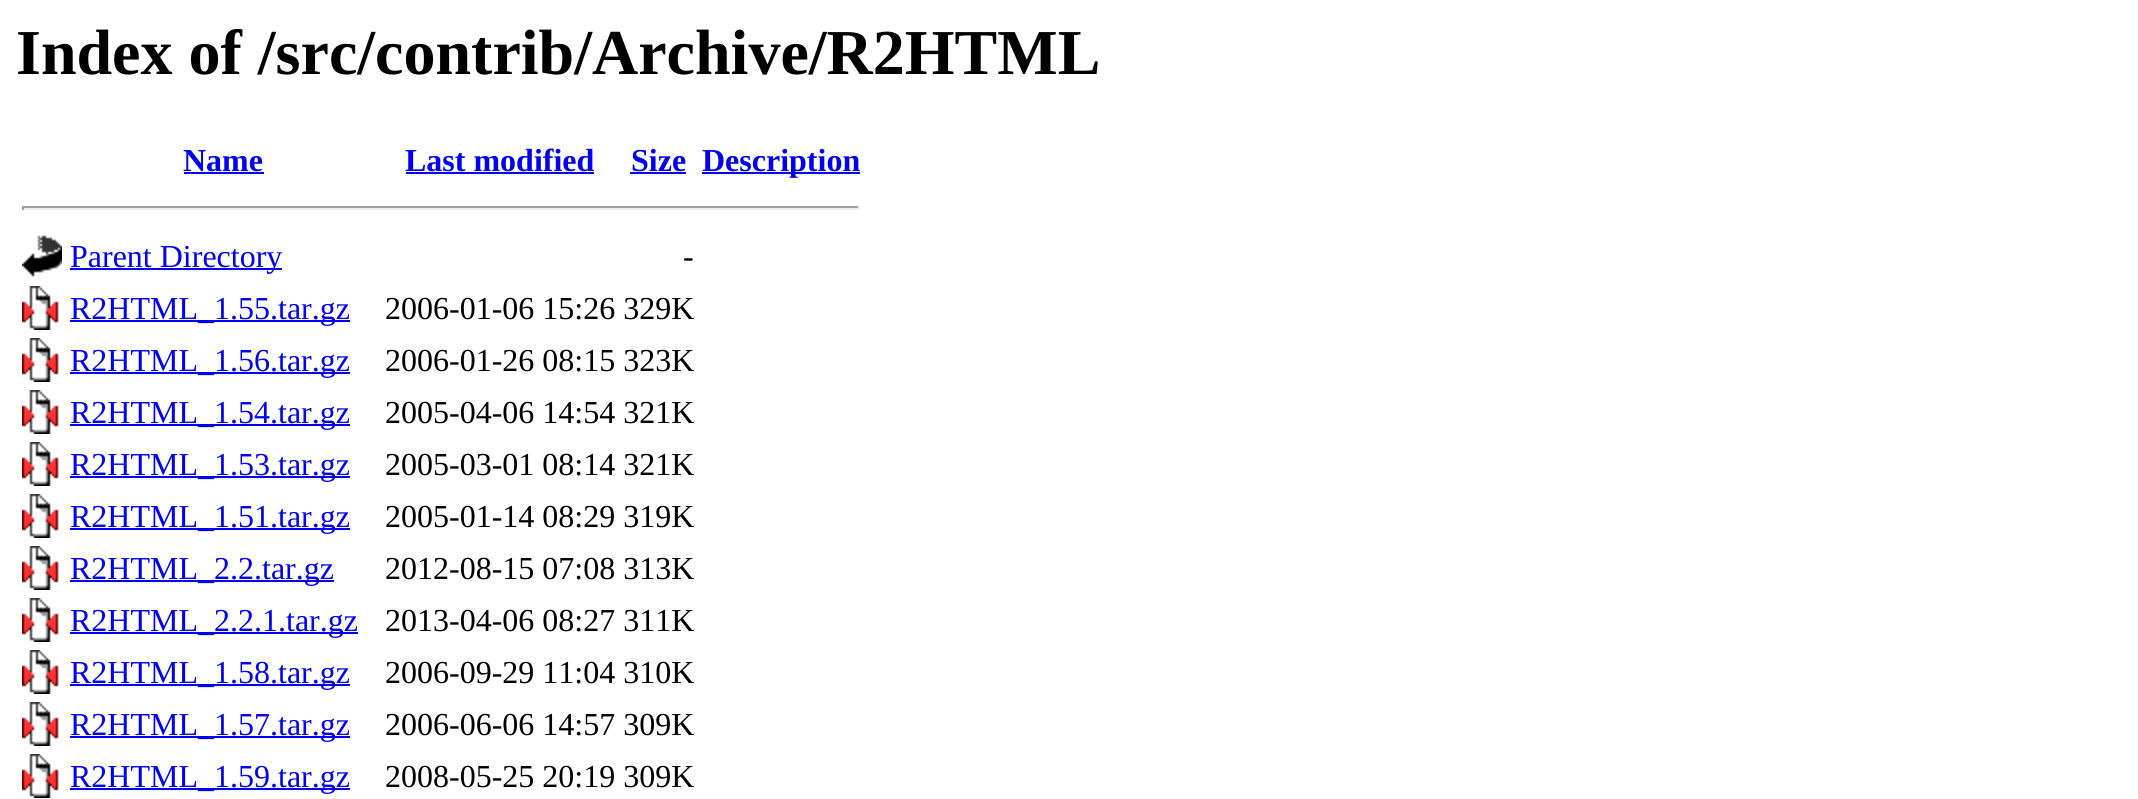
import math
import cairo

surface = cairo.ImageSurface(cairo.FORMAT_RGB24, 2138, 799)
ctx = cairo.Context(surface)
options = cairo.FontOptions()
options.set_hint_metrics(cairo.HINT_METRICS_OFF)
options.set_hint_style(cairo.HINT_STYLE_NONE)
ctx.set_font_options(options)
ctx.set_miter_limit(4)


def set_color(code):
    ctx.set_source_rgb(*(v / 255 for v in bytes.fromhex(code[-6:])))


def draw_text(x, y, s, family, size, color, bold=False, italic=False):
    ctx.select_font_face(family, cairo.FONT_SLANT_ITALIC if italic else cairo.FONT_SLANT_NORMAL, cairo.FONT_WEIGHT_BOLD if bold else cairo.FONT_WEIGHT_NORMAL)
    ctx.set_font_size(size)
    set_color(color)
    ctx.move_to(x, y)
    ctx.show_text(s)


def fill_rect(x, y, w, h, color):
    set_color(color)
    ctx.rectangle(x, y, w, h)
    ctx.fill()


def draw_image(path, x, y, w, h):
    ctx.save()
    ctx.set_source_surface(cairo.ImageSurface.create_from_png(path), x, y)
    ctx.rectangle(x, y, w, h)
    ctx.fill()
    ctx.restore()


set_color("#ffffff")
ctx.paint()
draw_text(16, 74, "Index of /src/contrib/Archive/R2HTML", "Liberation Serif", 64, "#000000", bold=True)
draw_text(183, 171, "Name", "Liberation Serif", 32, "#0000ee", bold=True)
fill_rect(184, 172, 80, 2, "#0000ee")
draw_text(405, 171, "Last modified", "Liberation Serif", 32, "#0000ee", bold=True)
fill_rect(406, 172, 188, 2, "#0000ee")
draw_text(631, 171, "Size", "Liberation Serif", 32, "#0000ee", bold=True)
fill_rect(630, 172, 56, 2, "#0000ee")
fill_rect(702, 172, 158, 2, "#0000ee")
draw_text(702, 171, "Description", "Liberation Serif", 32, "#0000ee", bold=True)
fill_rect(22, 206, 838, 2, "#9f9f9f")
fill_rect(858, 206, 2, 4, "#eeeeee")
fill_rect(22, 208, 838, 2, "#eeeeee")
fill_rect(22, 206, 2, 4, "#9f9f9f")
draw_image("assets/img1.png", 22, 235, 40, 42)
fill_rect(70, 268, 212, 2, "#0000ee")
draw_text(70, 267, "Parent Directory", "Liberation Serif", 32, "#0000ee")
draw_text(683, 267, "-", "Liberation Serif", 32, "#000000")
draw_image("assets/img2.png", 22, 286, 37, 44)
fill_rect(70, 320, 280, 2, "#0000ee")
draw_text(70, 319, "R2HTML_1.55.tar.gz", "Liberation Serif", 32, "#0000ee")
draw_text(385, 319, "2006-01-06 15:26 329K", "Liberation Serif", 32, "#000000")
draw_image("assets/img2.png", 22, 338, 37, 44)
fill_rect(70, 372, 280, 2, "#0000ee")
draw_text(70, 371, "R2HTML_1.56.tar.gz", "Liberation Serif", 32, "#0000ee")
draw_text(385, 371, "2006-01-26 08:15 323K", "Liberation Serif", 32, "#000000")
draw_image("assets/img2.png", 22, 390, 37, 44)
fill_rect(70, 424, 280, 2, "#0000ee")
draw_text(70, 423, "R2HTML_1.54.tar.gz", "Liberation Serif", 32, "#0000ee")
draw_text(385, 423, "2005-04-06 14:54 321K", "Liberation Serif", 32, "#000000")
draw_image("assets/img2.png", 22, 442, 37, 44)
fill_rect(70, 476, 280, 2, "#0000ee")
draw_text(70, 475, "R2HTML_1.53.tar.gz", "Liberation Serif", 32, "#0000ee")
draw_text(385, 475, "2005-03-01 08:14 321K", "Liberation Serif", 32, "#000000")
draw_image("assets/img2.png", 22, 494, 37, 44)
fill_rect(70, 528, 280, 2, "#0000ee")
draw_text(70, 527, "R2HTML_1.51.tar.gz", "Liberation Serif", 32, "#0000ee")
draw_text(385, 527, "2005-01-14 08:29 319K", "Liberation Serif", 32, "#000000")
draw_image("assets/img2.png", 22, 546, 37, 44)
fill_rect(70, 580, 264, 2, "#0000ee")
draw_text(70, 579, "R2HTML_2.2.tar.gz", "Liberation Serif", 32, "#0000ee")
draw_text(385, 579, "2012-08-15 07:08 313K", "Liberation Serif", 32, "#000000")
draw_image("assets/img2.png", 22, 598, 37, 44)
fill_rect(70, 632, 288, 2, "#0000ee")
draw_text(70, 631, "R2HTML_2.2.1.tar.gz", "Liberation Serif", 32, "#0000ee")
draw_text(385, 631, "2013-04-06 08:27 311K", "Liberation Serif", 32, "#000000")
draw_image("assets/img2.png", 22, 650, 37, 44)
fill_rect(70, 684, 280, 2, "#0000ee")
draw_text(70, 683, "R2HTML_1.58.tar.gz", "Liberation Serif", 32, "#0000ee")
draw_text(385, 683, "2006-09-29 11:04 310K", "Liberation Serif", 32, "#000000")
draw_image("assets/img2.png", 22, 702, 37, 44)
fill_rect(70, 736, 280, 2, "#0000ee")
draw_text(70, 735, "R2HTML_1.57.tar.gz", "Liberation Serif", 32, "#0000ee")
draw_text(385, 735, "2006-06-06 14:57 309K", "Liberation Serif", 32, "#000000")
draw_image("assets/img2.png", 22, 754, 37, 44)
fill_rect(70, 788, 280, 2, "#0000ee")
draw_text(70, 787, "R2HTML_1.59.tar.gz", "Liberation Serif", 32, "#0000ee")
draw_text(385, 787, "2008-05-25 20:19 309K", "Liberation Serif", 32, "#000000")
surface.write_to_png("output.png")
